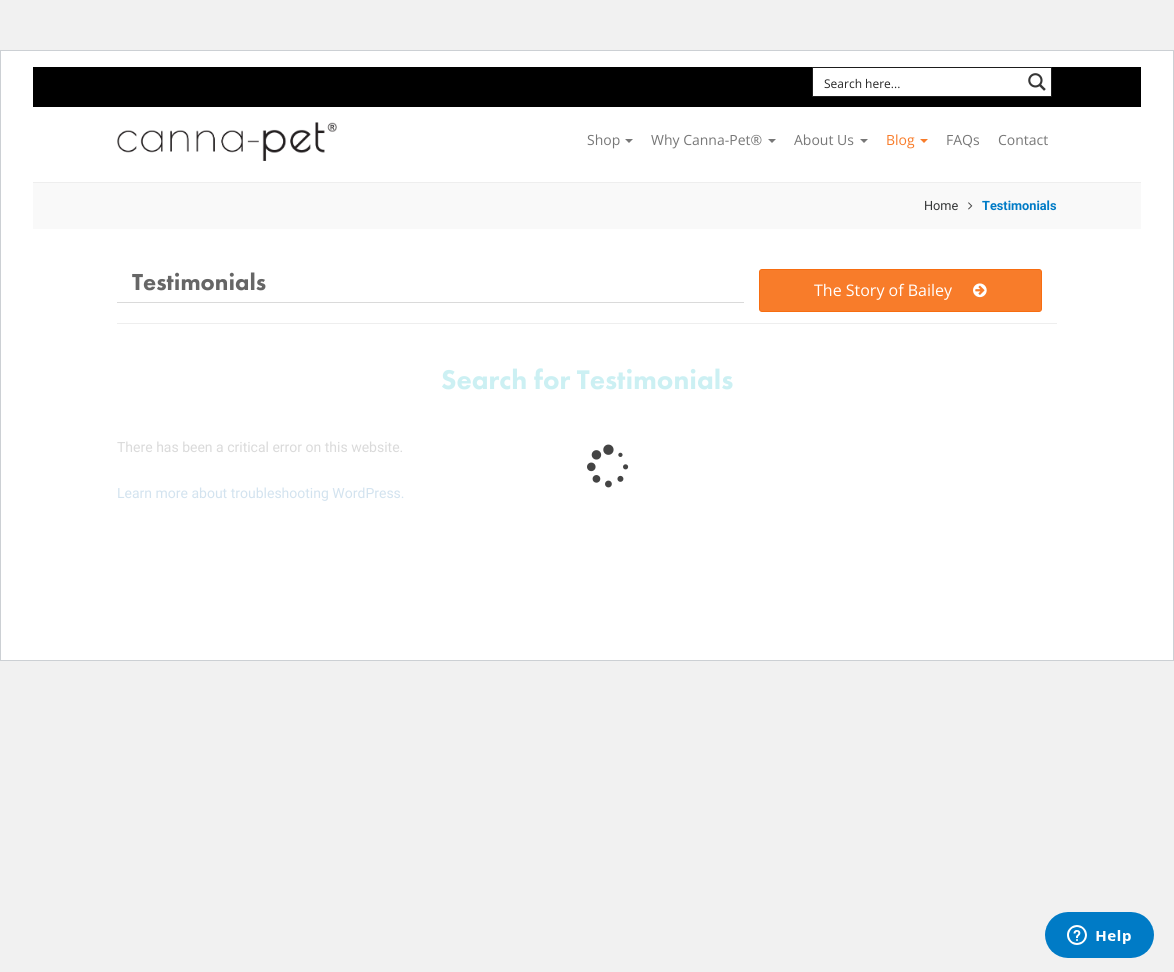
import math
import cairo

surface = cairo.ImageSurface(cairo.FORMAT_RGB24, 1174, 972)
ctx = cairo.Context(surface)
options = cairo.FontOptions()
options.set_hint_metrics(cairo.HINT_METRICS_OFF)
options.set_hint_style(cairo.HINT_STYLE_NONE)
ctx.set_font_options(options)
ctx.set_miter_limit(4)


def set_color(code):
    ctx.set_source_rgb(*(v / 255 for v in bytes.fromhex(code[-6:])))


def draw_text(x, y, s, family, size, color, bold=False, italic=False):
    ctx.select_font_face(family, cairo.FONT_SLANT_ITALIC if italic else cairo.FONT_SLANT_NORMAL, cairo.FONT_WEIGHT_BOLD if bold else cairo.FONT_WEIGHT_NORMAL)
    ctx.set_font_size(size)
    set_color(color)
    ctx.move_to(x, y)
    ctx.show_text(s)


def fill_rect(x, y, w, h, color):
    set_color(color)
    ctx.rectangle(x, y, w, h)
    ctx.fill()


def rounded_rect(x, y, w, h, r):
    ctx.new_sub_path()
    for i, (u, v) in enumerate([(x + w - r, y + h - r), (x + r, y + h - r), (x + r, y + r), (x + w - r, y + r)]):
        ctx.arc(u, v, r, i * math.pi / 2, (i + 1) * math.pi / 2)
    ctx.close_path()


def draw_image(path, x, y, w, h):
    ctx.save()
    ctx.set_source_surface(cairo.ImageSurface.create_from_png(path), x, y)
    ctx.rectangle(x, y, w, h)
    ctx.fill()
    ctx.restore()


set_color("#f1f1f1")
ctx.paint()
set_color("#ffffff")
ctx.rectangle(0.5, 50.5, 1173, 610)
ctx.fill_preserve()
set_color("#ccd0d4")
ctx.set_line_width(1)
ctx.stroke()
fill_rect(33, 67, 1108, 40, "#000000")
set_color("#ffffff")
ctx.rectangle(812.5, 67.5, 239, 29)
ctx.fill_preserve()
set_color("#1d1d1d")
ctx.stroke()
draw_text(824, 88, "Search here...", "Open Sans", 12, "#262626")
draw_image("assets/img1.png", 1028, 73, 18, 18)
fill_rect(33, 182, 1108, 1, "#eeeeee")
draw_image("assets/img2.png", 117, 122, 220, 39)
draw_text(587, 145, "Shop", "Open Sans", 14, "#777777")
ctx.new_path()
ctx.move_to(625, 139)
ctx.line_to(633, 139)
ctx.line_to(629, 143)
ctx.close_path()
ctx.fill()
draw_text(651, 145, "Why Canna-Pet®", "Open Sans", 14, "#777777")
ctx.new_path()
ctx.move_to(768, 139)
ctx.line_to(776, 139)
ctx.line_to(772, 143)
ctx.close_path()
ctx.fill()
draw_text(794, 145, "About Us", "Open Sans", 14, "#777777")
ctx.new_path()
ctx.move_to(860, 139)
ctx.line_to(868, 139)
ctx.line_to(864, 143)
ctx.close_path()
ctx.fill()
draw_text(886, 145, "Blog", "Open Sans", 14, "#f87c2a")
ctx.new_path()
ctx.move_to(920, 139)
ctx.line_to(928, 139)
ctx.line_to(924, 143)
ctx.close_path()
ctx.fill()
draw_text(946, 145, "FAQs", "Open Sans", 14, "#777777")
draw_text(998, 145, "Contact", "Open Sans", 14, "#777777")
fill_rect(33, 183, 1108, 46, "#f9f9f9")
draw_text(924, 210, "Home", "Roboto", 12.75, "#353738")
draw_image("assets/img3.png", 968, 202, 5, 8)
draw_text(982, 210, "Testimonials", "Roboto", 12.75, "#007bc6", bold=True)
fill_rect(117, 323, 940, 1, "#eeeeee")
fill_rect(117, 302, 627, 1, "#dadada")
draw_text(132, 290, "Testimonials", "Futura PT Black", 24, "#666666")
set_color("#f87c2a")
rounded_rect(759.5, 269.5, 282, 42, 2.5)
ctx.fill_preserve()
set_color("#f76d11")
ctx.stroke()
draw_text(814, 296, "The Story of Bailey", "Open Sans", 16, "#ffffff")
draw_image("assets/img4.png", 973, 283, 14, 15)
draw_text(441, 389, "Search for Testimonials", "Futura PT Black", 28, "#ccf0f3")
draw_text(117, 452, "There has been a critical error on this website.", "Roboto", 14, "#dadada")
draw_text(117, 498, "Learn more about troubleshooting WordPress.", "Roboto", 14, "#d3e3ef")
draw_image("assets/img5.png", 587, 444, 42, 44)
draw_image("assets/img6.png", 1045, 912, 109, 46)
surface.write_to_png("output.png")
